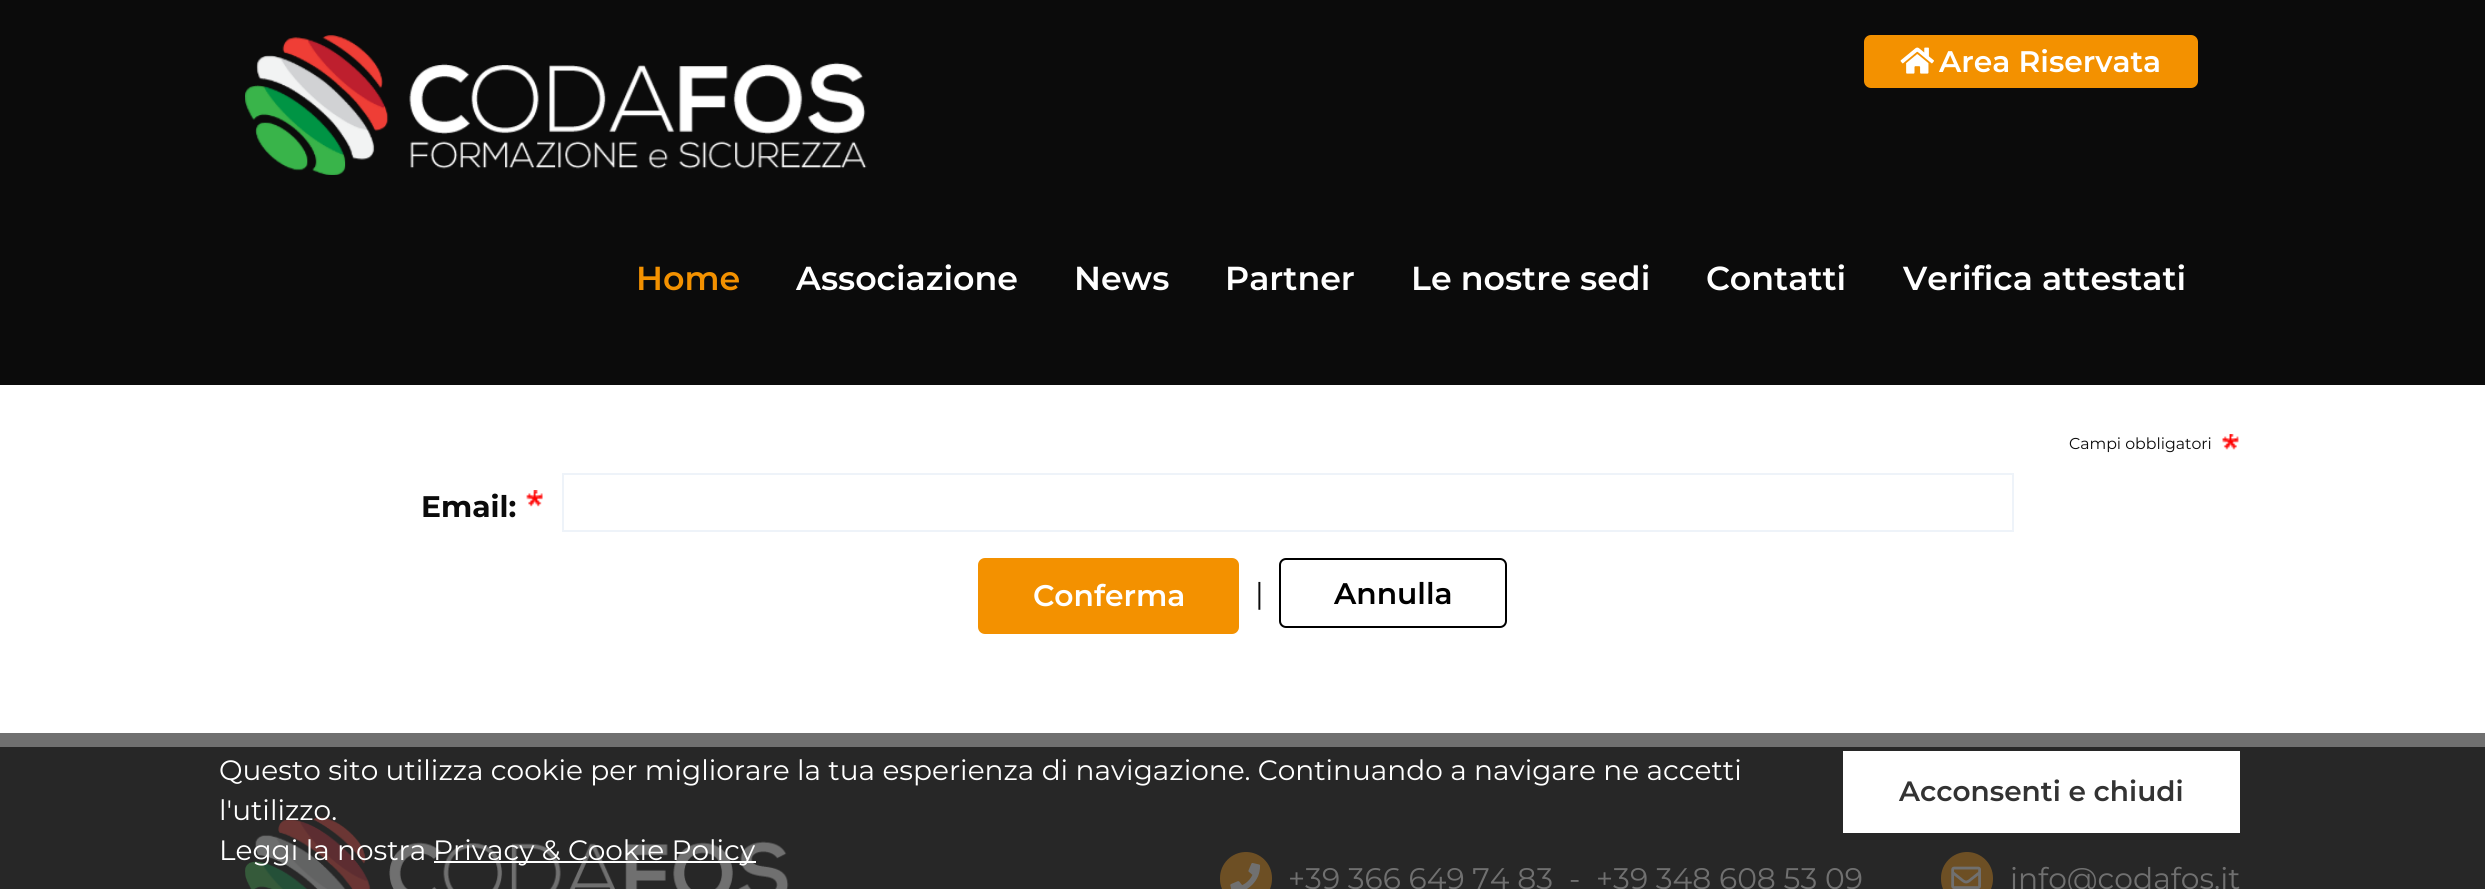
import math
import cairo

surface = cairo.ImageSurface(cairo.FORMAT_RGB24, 2485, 889)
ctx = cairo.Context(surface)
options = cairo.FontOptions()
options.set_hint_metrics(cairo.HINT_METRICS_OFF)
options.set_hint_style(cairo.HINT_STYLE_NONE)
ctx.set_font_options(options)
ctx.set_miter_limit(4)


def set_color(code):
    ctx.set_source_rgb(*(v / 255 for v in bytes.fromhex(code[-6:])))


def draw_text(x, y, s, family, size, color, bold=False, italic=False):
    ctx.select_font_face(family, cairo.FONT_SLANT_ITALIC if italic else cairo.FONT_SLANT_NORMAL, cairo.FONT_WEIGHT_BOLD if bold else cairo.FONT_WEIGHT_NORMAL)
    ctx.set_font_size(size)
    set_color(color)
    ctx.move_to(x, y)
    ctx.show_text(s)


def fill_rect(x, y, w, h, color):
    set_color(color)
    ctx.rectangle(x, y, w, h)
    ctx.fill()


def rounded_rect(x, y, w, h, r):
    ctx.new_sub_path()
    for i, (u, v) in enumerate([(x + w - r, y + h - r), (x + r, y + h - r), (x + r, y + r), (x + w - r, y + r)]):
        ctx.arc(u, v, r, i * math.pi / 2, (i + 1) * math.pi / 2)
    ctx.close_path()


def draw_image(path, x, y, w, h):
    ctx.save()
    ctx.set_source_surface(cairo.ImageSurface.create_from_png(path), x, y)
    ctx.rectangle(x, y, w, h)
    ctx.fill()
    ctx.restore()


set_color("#ffffff")
ctx.paint()
fill_rect(0, 733, 2485, 14, "#707070")
fill_rect(0, 0, 2485, 385, "#0b0b0b")
set_color("#f39100")
rounded_rect(1865, 36, 332, 51, 6)
ctx.fill_preserve()
ctx.stroke()
draw_image("assets/img1.png", 1900, 47, 34, 27)
draw_text(1939, 72, "Area Riservata", "Montserrat SemiBold", 29.75, "#ffffff")
draw_image("assets/img2.png", 245, 35, 622, 140)
draw_text(636, 290, "Home", "Montserrat SemiBold", 33.25, "#f39100")
draw_text(796, 290, "Associazione", "Montserrat SemiBold", 33.25, "#ffffff")
draw_text(1074, 290, "News", "Montserrat SemiBold", 33.25, "#ffffff")
draw_text(1225, 290, "Partner", "Montserrat SemiBold", 33.25, "#ffffff")
draw_text(1411, 290, "Le nostre sedi", "Montserrat SemiBold", 33.25, "#ffffff")
draw_text(1706, 290, "Contatti", "Montserrat SemiBold", 33.25, "#ffffff")
draw_text(1903, 290, "Verifica attestati", "Montserrat SemiBold", 33.25, "#ffffff")
draw_text(2069, 449, "Campi obbligatori", "Montserrat", 15.75, "#0b0b0b")
draw_image("assets/img3.png", 2222, 434, 17, 16)
draw_image("assets/img4.png", 526, 490, 17, 17)
draw_text(421, 517, "Email:", "Montserrat", 29.75, "#0b0b0b", bold=True)
ctx.rectangle(563, 474, 1450, 57)
set_color("#eef3f9")
ctx.stroke()
set_color("#f39100")
rounded_rect(979, 559, 259, 74, 6)
ctx.fill_preserve()
ctx.stroke()
draw_text(1033, 606, "Conferma", "Montserrat SemiBold", 29.75, "#ffffff")
draw_text(1255, 604, "|", "Montserrat", 29.75, "#0b0b0b")
rounded_rect(1280, 559, 226, 68, 6)
set_color("#000000")
ctx.stroke()
draw_text(1334, 604, "Annulla", "Montserrat SemiBold", 29.75, "#000000")
fill_rect(0, 747, 2485, 142, "#272727")
draw_text(219, 780, "Questo sito utilizza cookie per migliorare la tua esperienza di navigazione. Continuando a navigare ne accetti", "Montserrat", 28, "#ffffff")
draw_image("assets/img5.png", 245, 817, 544, 72)
draw_text(219, 820, "l'utilizzo.", "Montserrat", 28, "#ffffff")
draw_text(219, 860, "Leggi la nostra", "Montserrat", 28, "#ffffff")
fill_rect(434, 861, 322, 2, "#ffffff")
draw_text(433, 860, "Privacy & Cookie Policy", "Montserrat", 28, "#ffffff")
fill_rect(1843, 751, 397, 82, "#ffffff")
draw_text(1899, 801, "Acconsenti e chiudi", "Montserrat SemiBold", 28, "#333333")
set_color("#6d4f24")
rounded_rect(1220, 852, 52, 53, 26)
ctx.fill()
draw_image("assets/img6.png", 1230, 863, 31, 26)
draw_text(1288, 889, "+39 366 649 74 83", "Montserrat", 29.75, "#707070")
draw_text(1569, 889, "-", "Montserrat", 29.75, "#707070")
draw_text(1596, 889, "+39 348 608 53 09", "Montserrat", 29.75, "#707070")
set_color("#6d4f24")
rounded_rect(1941, 852, 52, 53, 26)
ctx.fill()
draw_image("assets/img7.png", 1951, 866, 30, 23)
draw_text(2010, 889, "info@codafos.it", "Montserrat", 29.75, "#707070")
surface.write_to_png("output.png")
